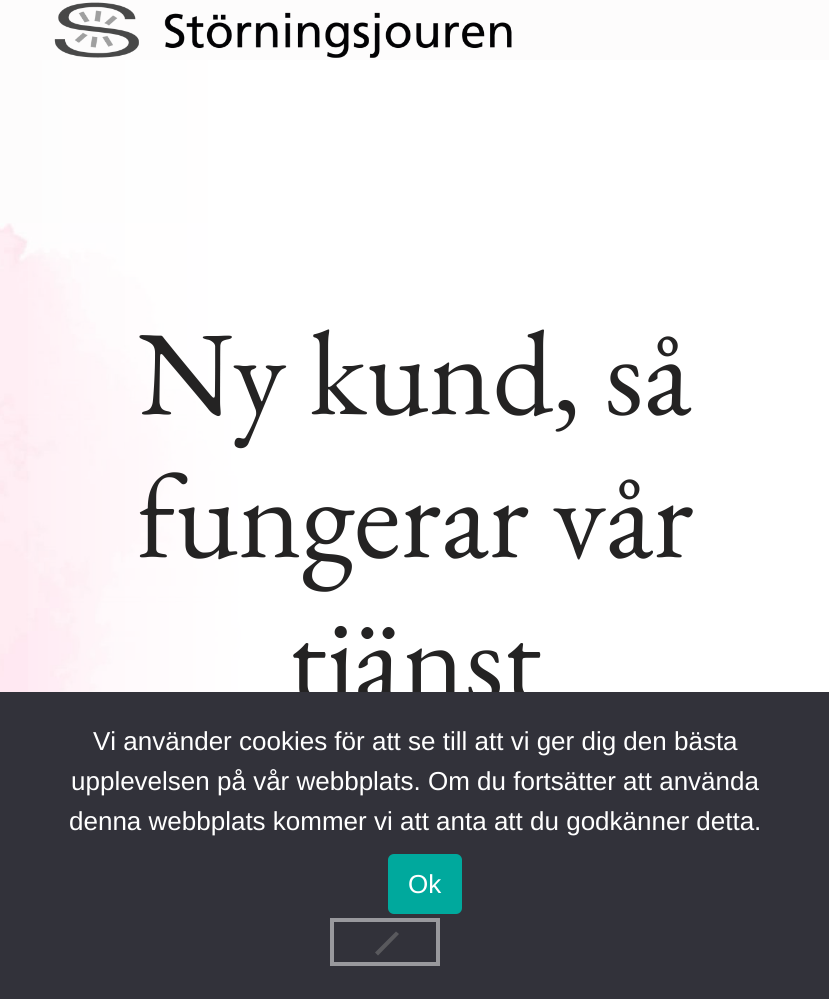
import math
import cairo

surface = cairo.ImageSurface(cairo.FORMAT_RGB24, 829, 999)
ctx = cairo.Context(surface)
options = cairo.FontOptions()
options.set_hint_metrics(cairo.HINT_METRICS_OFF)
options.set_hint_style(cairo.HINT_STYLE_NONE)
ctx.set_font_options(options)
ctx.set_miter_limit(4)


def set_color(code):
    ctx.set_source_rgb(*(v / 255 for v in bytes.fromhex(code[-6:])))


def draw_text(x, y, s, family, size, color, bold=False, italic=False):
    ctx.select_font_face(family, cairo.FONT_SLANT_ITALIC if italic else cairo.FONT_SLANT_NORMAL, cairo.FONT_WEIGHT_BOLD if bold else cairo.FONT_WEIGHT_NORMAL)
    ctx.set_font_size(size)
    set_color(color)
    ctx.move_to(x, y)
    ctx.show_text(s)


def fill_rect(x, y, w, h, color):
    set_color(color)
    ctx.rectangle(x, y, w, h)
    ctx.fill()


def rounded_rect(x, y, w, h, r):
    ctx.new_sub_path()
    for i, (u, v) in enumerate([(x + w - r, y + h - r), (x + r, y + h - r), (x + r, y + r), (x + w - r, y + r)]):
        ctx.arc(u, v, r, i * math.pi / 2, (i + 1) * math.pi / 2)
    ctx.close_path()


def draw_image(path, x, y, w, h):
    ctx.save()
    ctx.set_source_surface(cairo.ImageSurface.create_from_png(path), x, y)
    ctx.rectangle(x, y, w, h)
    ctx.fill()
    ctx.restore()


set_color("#fdfcfc")
ctx.paint()
draw_image("assets/img1.png", 54, 2, 458, 56)
draw_image("assets/img2.png", 0, 223, 248, 469)
gradient = cairo.LinearGradient(0, 516, 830, 516)
gradient.add_color_stop_rgba(0, 1, 1, 1, 0)
gradient.add_color_stop_rgba(0.3, 1, 1, 1, 1)
ctx.set_source(gradient)
ctx.rectangle(28, 60, 801, 632)
ctx.fill()
draw_text(138, 414, "Ny kund, så", "EB Garamond", 120, "#242323")
draw_text(137, 557, "fungerar vår", "EB Garamond", 120, "#242323")
draw_text(289, 700, "tjänst", "EB Garamond", 120, "#242323")
fill_rect(0, 692, 829, 307, "#32323a")
draw_text(93, 750, "Vi använder cookies för att se till att vi ger dig den bästa", "Liberation Sans", 26, "#ffffff")
draw_text(71, 790, "upplevelsen på vår webbplats. Om du fortsätter att använda", "Liberation Sans", 26, "#ffffff")
draw_text(69, 830, "denna webbplats kommer vi att anta att du godkänner detta.", "Liberation Sans", 26, "#ffffff")
set_color("#00a99d")
rounded_rect(388, 854, 74, 60, 6)
ctx.fill()
draw_text(408, 893, "Ok", "Liberation Sans", 26, "#ffffff")
ctx.rectangle(332, 920, 106, 44)
set_color("#99999d")
ctx.set_line_width(4)
ctx.stroke()
set_color("#59595d")
ctx.new_path()
ctx.move_to(396, 931.5)
ctx.line_to(399, 934)
ctx.line_to(378, 955.5)
ctx.line_to(375, 952.5)
ctx.close_path()
ctx.fill()
surface.write_to_png("output.png")
